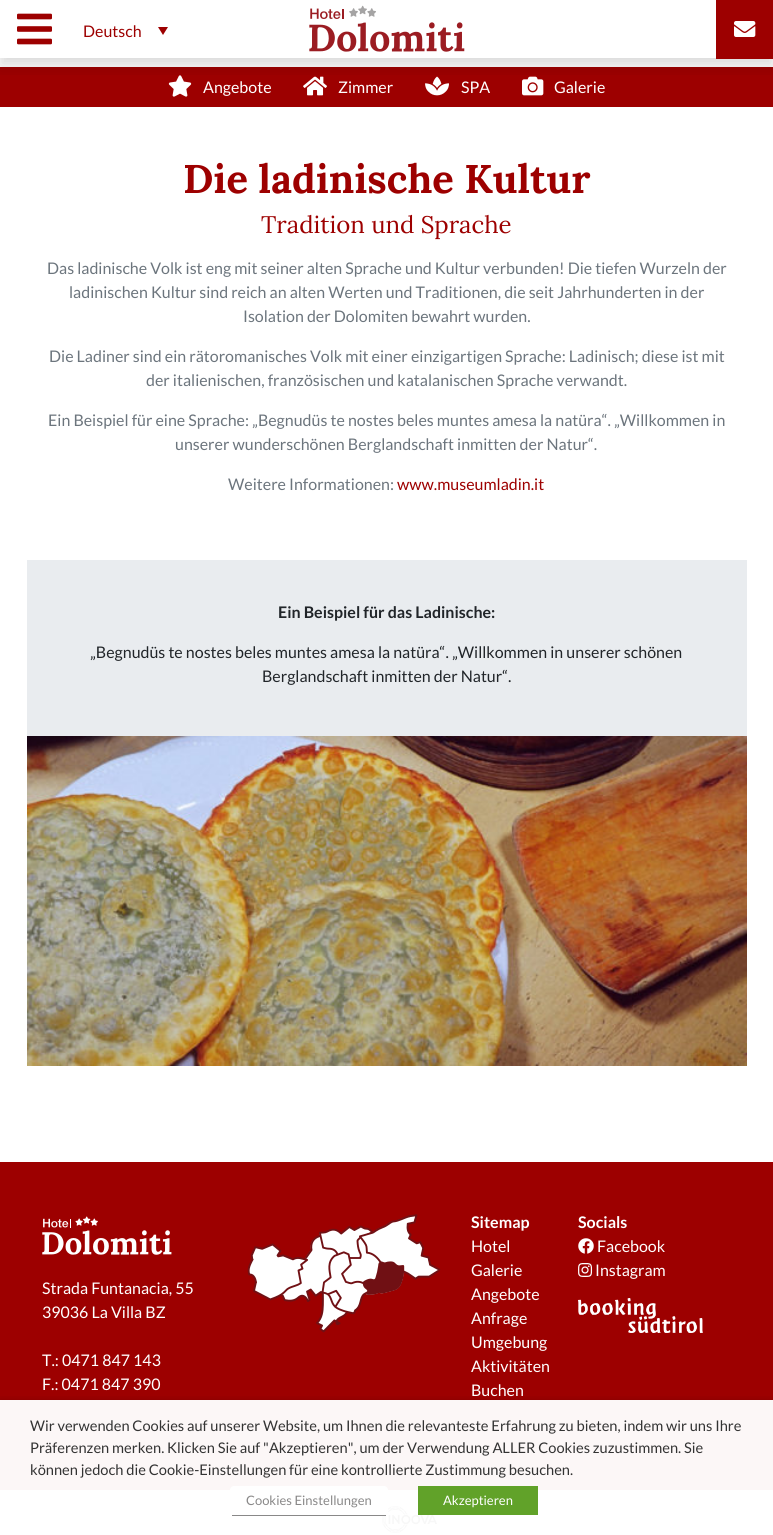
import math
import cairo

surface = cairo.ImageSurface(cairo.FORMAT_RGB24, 773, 1535)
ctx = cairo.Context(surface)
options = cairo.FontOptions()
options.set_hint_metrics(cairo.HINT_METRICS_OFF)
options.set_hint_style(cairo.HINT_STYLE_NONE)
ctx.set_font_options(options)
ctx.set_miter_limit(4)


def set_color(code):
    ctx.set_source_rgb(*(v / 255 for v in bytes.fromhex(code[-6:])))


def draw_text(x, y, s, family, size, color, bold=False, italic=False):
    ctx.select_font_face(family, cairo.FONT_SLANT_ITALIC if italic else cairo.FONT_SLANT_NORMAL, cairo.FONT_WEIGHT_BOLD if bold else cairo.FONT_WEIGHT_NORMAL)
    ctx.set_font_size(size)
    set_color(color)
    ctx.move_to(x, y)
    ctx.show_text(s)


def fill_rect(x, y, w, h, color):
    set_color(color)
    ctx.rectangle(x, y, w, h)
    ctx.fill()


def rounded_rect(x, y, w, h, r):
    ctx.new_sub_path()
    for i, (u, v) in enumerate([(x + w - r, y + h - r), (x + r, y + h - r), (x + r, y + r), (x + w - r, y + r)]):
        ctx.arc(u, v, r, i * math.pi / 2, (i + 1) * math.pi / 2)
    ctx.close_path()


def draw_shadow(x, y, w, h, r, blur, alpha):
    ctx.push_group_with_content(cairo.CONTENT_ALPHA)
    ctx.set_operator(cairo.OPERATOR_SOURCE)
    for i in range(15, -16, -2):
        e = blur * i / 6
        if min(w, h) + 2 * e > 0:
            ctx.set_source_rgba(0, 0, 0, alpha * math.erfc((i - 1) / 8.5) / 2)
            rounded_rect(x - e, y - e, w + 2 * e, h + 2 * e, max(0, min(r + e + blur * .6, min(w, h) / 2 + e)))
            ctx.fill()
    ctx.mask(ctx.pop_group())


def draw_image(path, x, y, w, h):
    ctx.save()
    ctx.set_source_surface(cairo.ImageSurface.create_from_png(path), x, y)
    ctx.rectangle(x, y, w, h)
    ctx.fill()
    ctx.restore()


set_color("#ffffff")
ctx.paint()
fill_rect(0, 67, 773, 40, "#9d0000")
draw_image("assets/img4.png", 168, 75, 24, 22)
draw_image("assets/img5.png", 303, 76, 24, 20)
draw_image("assets/img6.png", 425, 76, 24, 20)
draw_image("assets/img7.png", 522, 76, 22, 20)
ctx.save()
ctx.rectangle(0, 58, 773, 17)
ctx.clip()
set_color("#000000")
draw_shadow(0, 8, 773, 58, 0, 8, 0.15)
ctx.restore()
draw_image("assets/img1.png", 17, 13, 35, 32)
draw_text(83, 37, "Deutsch", "Lato", 16, "#9d0000")
ctx.new_path()
ctx.move_to(158, 27)
ctx.line_to(168, 27)
ctx.line_to(163, 35)
ctx.close_path()
ctx.fill()
draw_image("assets/img2.png", 309, 5, 156, 47)
fill_rect(716, 0, 57, 59, "#9d0000")
draw_image("assets/img3.png", 734, 21, 22, 16)
draw_text(203, 93, "Angebote", "Lato", 16, "#ffffff")
draw_text(338, 93, "Zimmer", "Lato", 16, "#ffffff")
draw_text(461, 93, "SPA", "Lato", 16, "#ffffff")
draw_text(554, 93, "Galerie", "Lato", 16, "#ffffff")
draw_text(183, 193, "Die ladinische Kultur", "Lora", 40, "#9d0000", bold=True)
draw_text(261, 233, "Tradition und Sprache", "Lora", 24, "#9d0000")
draw_text(47, 274, "Das ladinische Volk ist eng mit seiner alten Sprache und Kultur verbunden! Die tiefen Wurzeln der", "Lato", 16, "#6c757d")
draw_text(69, 298, "ladinischen Kultur sind reich an alten Werten und Traditionen, die seit Jahrhunderten in der", "Lato", 16, "#6c757d")
draw_text(243, 322, "Isolation der Dolomiten bewahrt wurden.", "Lato", 16, "#6c757d")
draw_text(49, 362, "Die Ladiner sind ein rätoromanisches Volk mit einer einzigartigen Sprache: Ladinisch; diese ist mit", "Lato", 16, "#6c757d")
draw_text(146, 386, "der italienischen, französischen und katalanischen Sprache verwandt.", "Lato", 16, "#6c757d")
draw_text(48, 426, "Ein Beispiel für eine Sprache: „Begnudüs te nostes beles muntes amesa la natüra“. „Willkommen in", "Lato", 16, "#6c757d")
draw_text(175, 450, "unserer wunderschönen Berglandschaft inmitten der Natur“.", "Lato", 16, "#6c757d")
draw_text(228, 490, "Weitere Informationen:", "Lato", 16, "#6c757d")
draw_text(397, 490, "www.museumladin.it", "Lato", 16, "#9d0000")
fill_rect(27, 560, 720, 176, "#e9ecef")
draw_text(278, 618, "Ein Beispiel für das Ladinische:", "Lato", 16, "#212529", bold=True)
draw_text(90, 658, "„Begnudüs te nostes beles muntes amesa la natüra“. „Willkommen in unserer schönen", "Lato", 16, "#212529")
draw_text(262, 682, "Berglandschaft inmitten der Natur“.", "Lato", 16, "#212529")
draw_image("assets/img8.png", 27, 736, 720, 330)
fill_rect(0, 1162, 773, 238, "#9d0000")
fill_rect(0, 1400, 773, 90, "#fcf7f7")
draw_image("assets/img9.png", 247, 1214, 194, 119)
draw_text(471, 1228, "Sitemap", "Lato", 16, "#ffffff", bold=True)
draw_text(471, 1252, "Hotel", "Lato", 16, "#ffffff")
draw_text(471, 1276, "Galerie", "Lato", 16, "#ffffff")
draw_text(471, 1300, "Angebote", "Lato", 16, "#ffffff")
draw_text(471, 1324, "Anfrage", "Lato", 16, "#ffffff")
draw_text(471, 1348, "Umgebung", "Lato", 16, "#ffffff")
draw_text(471, 1372, "Aktivitäten", "Lato", 16, "#ffffff")
draw_text(471, 1396, "Buchen", "Lato", 16, "#ffffff")
draw_text(578, 1228, "Socials", "Lato", 16, "#ffffff", bold=True)
draw_image("assets/img10.png", 578, 1238, 16, 16)
draw_text(597, 1252, "Facebook", "Lato", 16, "#ffffff")
draw_image("assets/img11.png", 578, 1263, 15, 14)
draw_text(595, 1276, "Instagram", "Lato", 16, "#ffffff")
draw_image("assets/img12.png", 578, 1298, 125, 35)
draw_image("assets/img13.png", 42, 1216, 130, 39)
draw_text(42, 1294, "Strada Funtanacia, 55", "Lato", 16, "#ffffff")
draw_text(42, 1318, "39036 La Villa BZ", "Lato", 16, "#ffffff")
draw_text(42, 1366, "T.: 0471 847 143", "Lato", 16, "#ffffff")
draw_text(42, 1390, "F.: 0471 847 390", "Lato", 16, "#ffffff")
draw_image("assets/img14.png", 382, 1506, 55, 27)
ctx.save()
ctx.rectangle(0, 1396, 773, 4)
ctx.clip()
set_color("#000000")
draw_shadow(0, 1405, 773, 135, 0, 5, 0.5)
ctx.restore()
draw_text(30, 1431, "Wir verwenden Cookies auf unserer Website, um Ihnen die relevanteste Erfahrung zu bieten, indem wir uns Ihre", "Lato", 14.65, "#333333")
draw_text(30, 1453, "Präferenzen merken. Klicken Sie auf \"Akzeptieren\", um der Verwendung ALLER Cookies zuzustimmen. Sie", "Lato", 14.65, "#333333")
draw_text(30, 1475, "können jedoch die Cookie-Einstellungen für eine kontrollierte Zustimmung besuchen.", "Lato", 14.65, "#333333")
set_color("#ffffff")
rounded_rect(230, 1486, 158, 30, 4)
ctx.fill()
fill_rect(232, 1515, 154, 1, "#898888")
draw_text(246, 1505, "Cookies Einstellungen", "Lato", 13, "#898888")
fill_rect(418, 1486, 120, 29, "#61a229")
draw_text(443, 1505, "Akzeptieren", "Lato", 13, "#ffffff")
surface.write_to_png("output.png")
